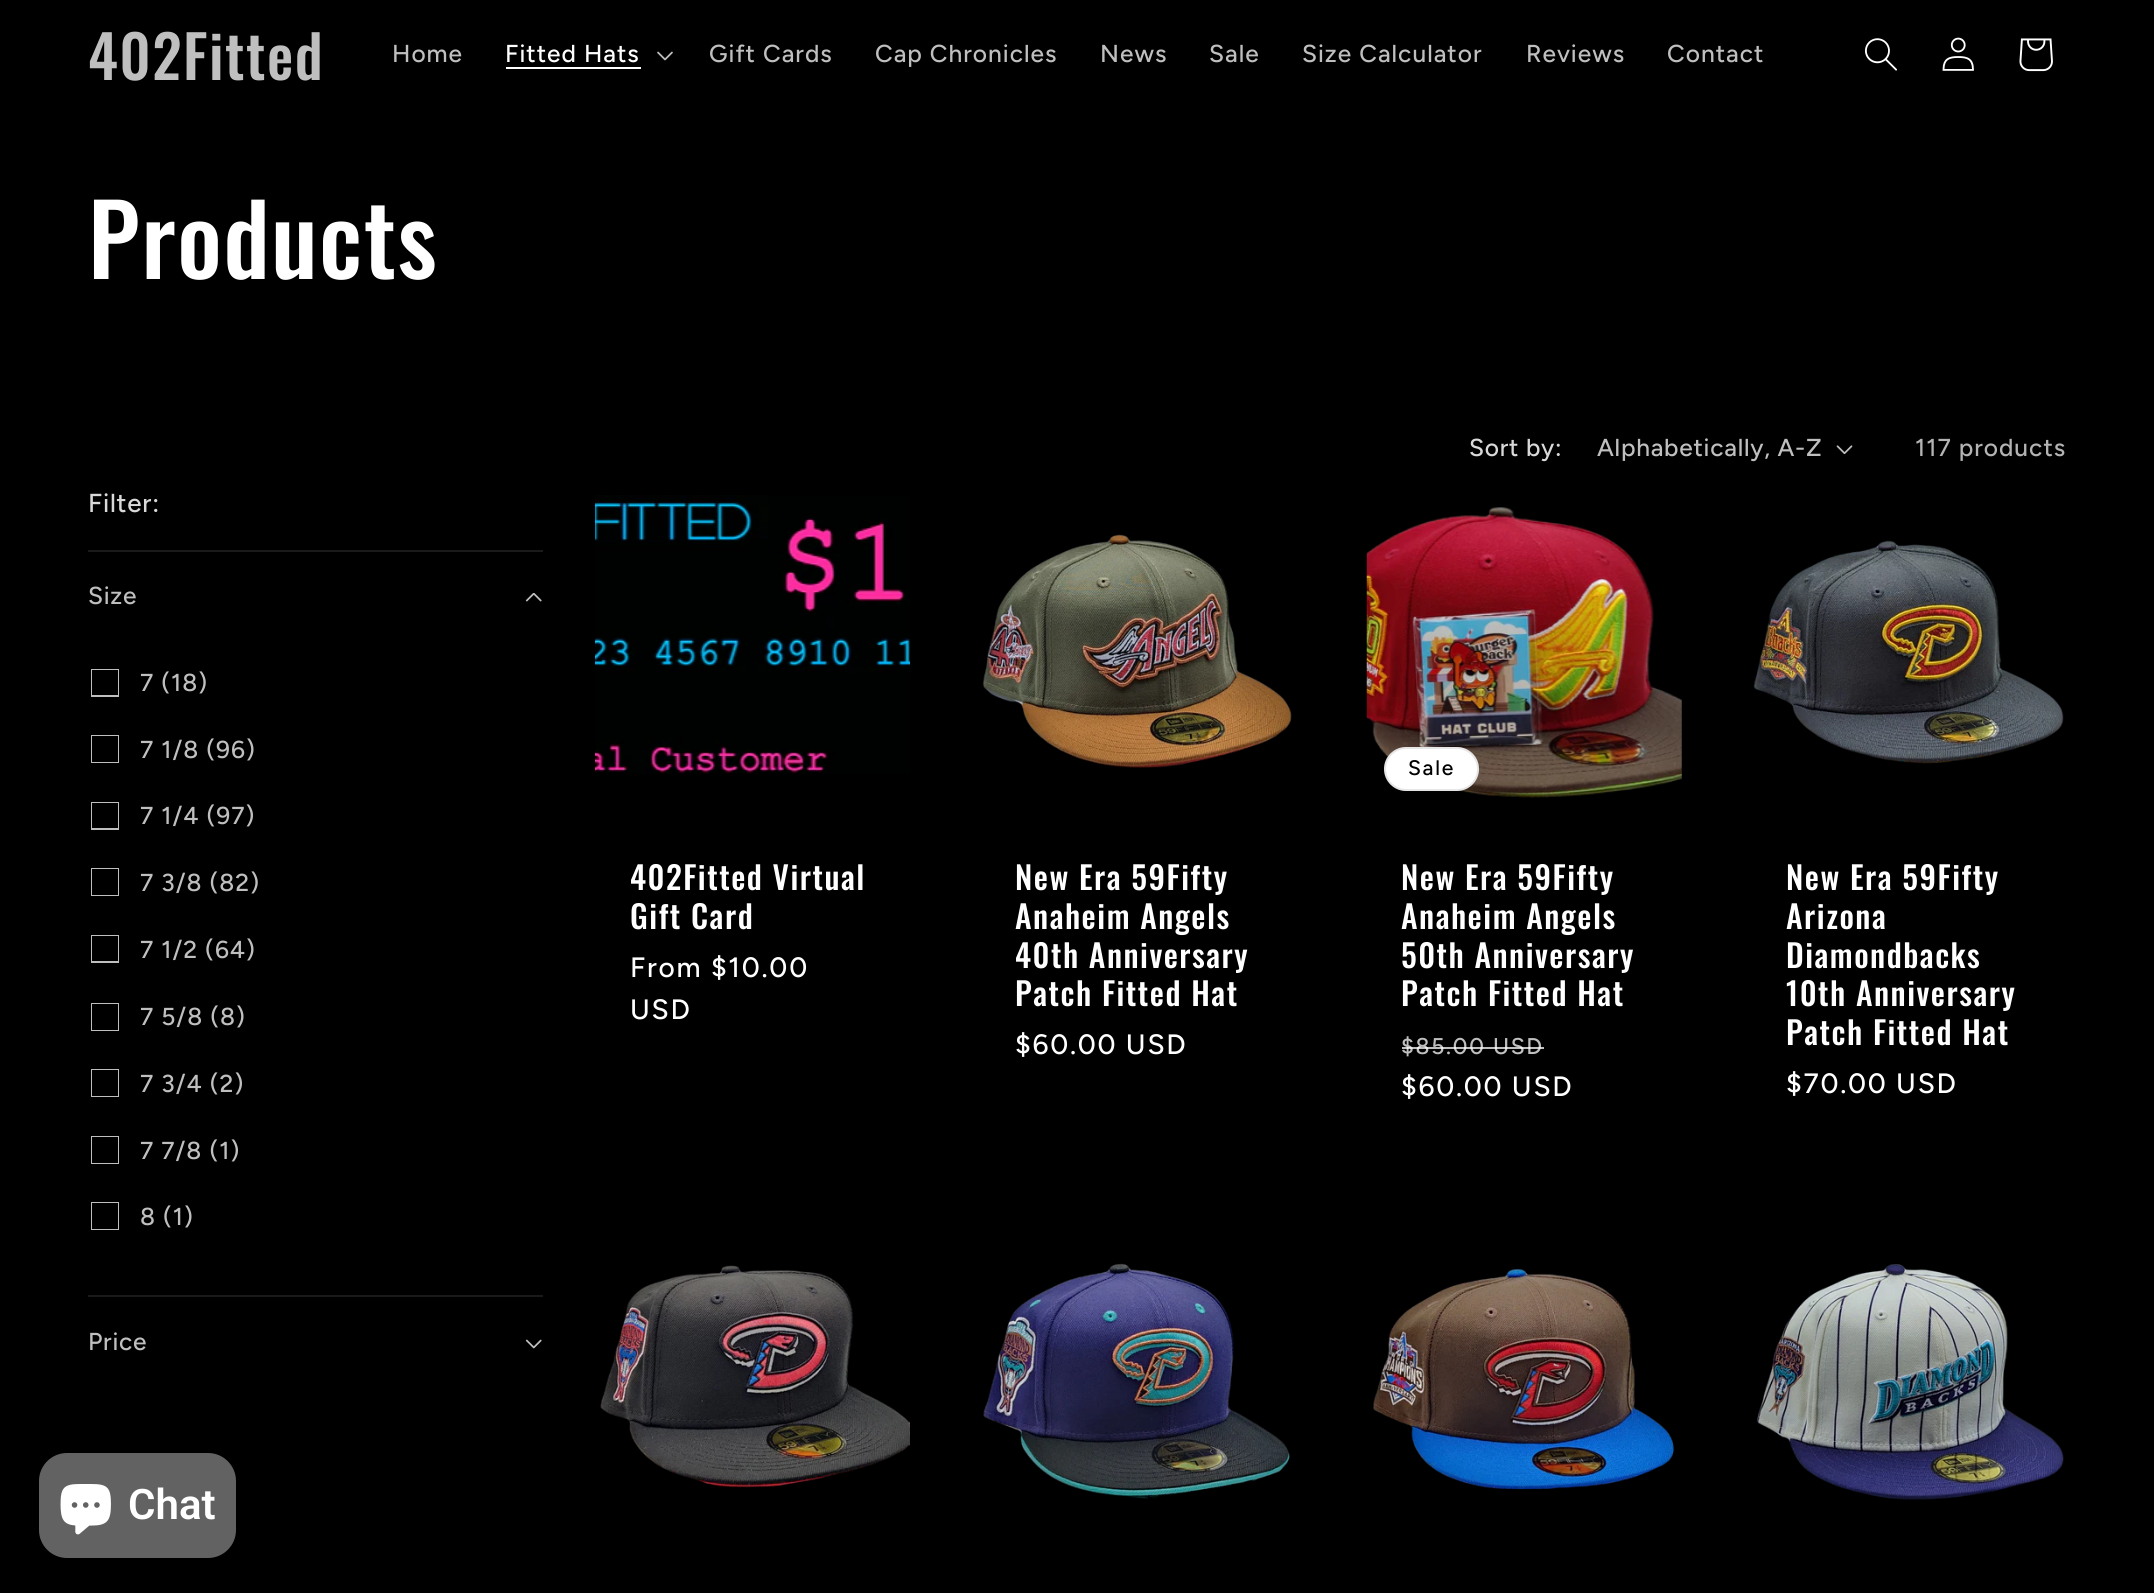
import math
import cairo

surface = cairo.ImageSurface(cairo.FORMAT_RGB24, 2154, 1593)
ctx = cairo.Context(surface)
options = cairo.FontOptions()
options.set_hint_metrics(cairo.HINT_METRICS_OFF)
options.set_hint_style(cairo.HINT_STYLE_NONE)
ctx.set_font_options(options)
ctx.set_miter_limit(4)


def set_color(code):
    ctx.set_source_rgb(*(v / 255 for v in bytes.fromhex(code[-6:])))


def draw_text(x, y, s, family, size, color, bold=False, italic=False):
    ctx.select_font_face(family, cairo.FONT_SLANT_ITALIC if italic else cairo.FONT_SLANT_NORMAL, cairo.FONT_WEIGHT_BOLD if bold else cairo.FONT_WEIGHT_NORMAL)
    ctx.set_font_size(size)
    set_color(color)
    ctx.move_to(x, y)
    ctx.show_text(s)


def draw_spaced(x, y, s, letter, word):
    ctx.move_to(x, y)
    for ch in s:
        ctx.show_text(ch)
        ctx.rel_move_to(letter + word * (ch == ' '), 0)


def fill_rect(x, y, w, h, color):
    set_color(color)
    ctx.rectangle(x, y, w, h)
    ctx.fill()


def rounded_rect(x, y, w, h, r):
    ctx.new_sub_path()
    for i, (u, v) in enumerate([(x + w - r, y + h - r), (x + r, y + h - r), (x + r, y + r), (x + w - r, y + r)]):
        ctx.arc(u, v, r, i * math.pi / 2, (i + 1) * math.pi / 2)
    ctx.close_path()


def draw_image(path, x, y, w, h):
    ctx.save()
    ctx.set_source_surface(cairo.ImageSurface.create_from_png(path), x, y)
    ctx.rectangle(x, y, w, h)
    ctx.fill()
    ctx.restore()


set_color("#000000")
ctx.paint()
ctx.select_font_face("Oswald Medium")
ctx.set_font_size(59)
set_color("#bfbfbf")
draw_spaced(88, 80, "402Fitted", 1.5, 0)
ctx.select_font_face("Figtree Medium")
ctx.set_font_size(24.5)
draw_spaced(392, 62, "Home", 1, 0)
set_color("#ffffff")
draw_spaced(505, 62, "Fitted Hats", 1, 0)
fill_rect(506, 67, 135, 2, "#ffffff")
draw_image("assets/img1.png", 657, 51, 16, 10)
set_color("#bfbfbf")
draw_spaced(709, 62, "Gift Cards", 1, 0)
draw_spaced(875, 62, "Cap Chronicles", 1, 0)
draw_spaced(1100, 62, "News", 1, 0)
draw_spaced(1209, 62, "Sale", 1, 0)
draw_spaced(1302, 62, "Size Calculator", 1, 0)
draw_spaced(1526, 62, "Reviews", 1, 0)
draw_spaced(1667, 62, "Contact", 1, 0)
draw_image("assets/img2.png", 1865, 38, 32, 33)
draw_image("assets/img3.png", 1942, 37, 32, 34)
draw_image("assets/img4.png", 2019, 38, 34, 34)
ctx.select_font_face("Oswald Medium")
ctx.set_font_size(98)
set_color("#ffffff")
draw_spaced(88, 279, "Products", 1.5, 0)
ctx.select_font_face("Figtree Medium")
ctx.set_font_size(24.5)
set_color("#d9d9d9")
draw_spaced(1469, 456, "Sort by:", 0.75, 0)
set_color("#bfbfbf")
draw_spaced(1597, 456, "Alphabetically, A-Z", 0.75, 0)
draw_image("assets/img5.png", 1836, 445, 17, 10)
set_color("#b3b3b3")
draw_spaced(1915, 456, "117 products", 1, 0)
ctx.set_font_size(26)
set_color("#d9d9d9")
draw_spaced(88, 512, "Filter:", 0.75, 0)
fill_rect(88, 550, 455, 2, "#1a1a1a")
ctx.set_font_size(24.5)
set_color("#bfbfbf")
draw_spaced(88, 604, "Size", 0.75, 0)
draw_image("assets/img6.png", 525, 593, 17, 9)
ctx.save()
ctx.rectangle(91, 669, 28, 28)
ctx.clip()
ctx.rectangle(91, 669, 28, 27)
ctx.stroke()
ctx.restore()
draw_spaced(140, 691, "7 (18)", 1, 0)
ctx.save()
ctx.rectangle(91, 735, 28, 28)
ctx.clip()
ctx.rectangle(91, 735, 28, 28)
ctx.stroke()
ctx.restore()
draw_spaced(140, 758, "7 1/8 (96)", 1, 0)
ctx.save()
ctx.rectangle(91, 802, 28, 28)
ctx.clip()
ctx.rectangle(91, 802, 28, 27)
ctx.stroke()
ctx.restore()
draw_spaced(140, 824, "7 1/4 (97)", 1, 0)
ctx.save()
ctx.rectangle(91, 868, 28, 28)
ctx.clip()
ctx.rectangle(91, 868, 28, 28)
ctx.stroke()
ctx.restore()
draw_spaced(140, 891, "7 3/8 (82)", 1, 0)
ctx.save()
ctx.rectangle(91, 935, 28, 28)
ctx.clip()
ctx.rectangle(91, 935, 28, 27)
ctx.stroke()
ctx.restore()
draw_spaced(140, 958, "7 1/2 (64)", 1, 0)
ctx.save()
ctx.rectangle(91, 1003, 28, 28)
ctx.clip()
ctx.rectangle(91, 1003, 28, 28)
ctx.stroke()
ctx.restore()
draw_spaced(140, 1025, "7 5/8 (8)", 1, 0)
ctx.save()
ctx.rectangle(91, 1069, 28, 28)
ctx.clip()
ctx.rectangle(91, 1069, 28, 28)
ctx.stroke()
ctx.restore()
draw_spaced(140, 1092, "7 3/4 (2)", 1, 0)
ctx.save()
ctx.rectangle(91, 1136, 28, 28)
ctx.clip()
ctx.rectangle(91, 1136, 28, 28)
ctx.stroke()
ctx.restore()
draw_spaced(140, 1159, "7 7/8 (1)", 1, 0)
ctx.save()
ctx.rectangle(91, 1202, 28, 28)
ctx.clip()
ctx.rectangle(91, 1202, 28, 28)
ctx.stroke()
ctx.restore()
draw_spaced(140, 1225, "8 (1)", 1, 0)
fill_rect(88, 1295, 455, 2, "#1a1a1a")
set_color("#bfbfbf")
draw_spaced(88, 1350, "Price", 0.75, 0)
draw_image("assets/img7.png", 525, 1339, 17, 10)
draw_image("assets/img8.png", 595, 495, 315, 279)
ctx.select_font_face("Oswald Medium")
ctx.set_font_size(31.75)
set_color("#ffffff")
draw_spaced(630, 890, "402Fitted Virtual", 1.5, 0)
draw_spaced(630, 929, "Gift Card", 1.5, 0)
ctx.select_font_face("Figtree Medium")
ctx.set_font_size(28)
draw_spaced(630, 977, "From $10.00", 1.75, 0)
draw_spaced(630, 1019, "USD", 1.75, 0)
draw_image("assets/img9.png", 982, 534, 310, 234)
ctx.select_font_face("Oswald Medium")
ctx.set_font_size(31.75)
draw_spaced(1015, 890, "New Era 59Fifty", 1.5, 0)
draw_spaced(1015, 929, "Anaheim Angels", 1.5, 0)
draw_spaced(1015, 968, "40th Anniversary", 1.5, 0)
draw_spaced(1015, 1006, "Patch Fitted Hat", 1.5, 0)
ctx.select_font_face("Figtree Medium")
ctx.set_font_size(28)
draw_spaced(1015, 1054, "$60.00 USD", 1.75, 0)
draw_image("assets/img10.png", 1366, 507, 316, 291)
rounded_rect(1384, 747, 95, 44, 22)
ctx.fill()
rounded_rect(1385, 748, 93, 42, 21)
ctx.set_source_rgba(0, 0, 0, 0.1)
ctx.stroke()
ctx.set_font_size(21)
set_color("#000000")
draw_spaced(1408, 775, "Sale", 1.75, 0)
ctx.select_font_face("Oswald Medium")
ctx.set_font_size(31.75)
set_color("#ffffff")
draw_spaced(1401, 890, "New Era 59Fifty", 1.5, 0)
draw_spaced(1401, 929, "Anaheim Angels", 1.5, 0)
draw_spaced(1401, 968, "50th Anniversary", 1.5, 0)
draw_spaced(1401, 1006, "Patch Fitted Hat", 1.5, 0)
ctx.select_font_face("Figtree Medium")
ctx.set_font_size(22.75)
set_color("#bfbfbf")
draw_spaced(1401, 1054, "$85.00 USD", 1.75, 0)
ctx.set_source_rgba(1, 1, 1, 0.75)
ctx.rectangle(1402, 1047, 142, 2)
ctx.fill()
ctx.set_font_size(28)
set_color("#ffffff")
draw_spaced(1401, 1096, "$60.00 USD", 1.75, 0)
draw_image("assets/img11.png", 1753, 540, 311, 224)
ctx.select_font_face("Oswald Medium")
ctx.set_font_size(31.75)
draw_spaced(1786, 890, "New Era 59Fifty", 1.5, 0)
draw_spaced(1786, 929, "Arizona", 1.5, 0)
draw_spaced(1786, 968, "Diamondbacks", 1.5, 0)
draw_spaced(1786, 1006, "10th Anniversary", 1.5, 0)
draw_spaced(1786, 1045, "Patch Fitted Hat", 1.5, 0)
ctx.select_font_face("Figtree Medium")
ctx.set_font_size(28)
draw_spaced(1786, 1093, "$70.00 USD", 1.75, 0)
draw_image("assets/img12.png", 600, 1265, 310, 223)
draw_image("assets/img13.png", 983, 1263, 307, 236)
draw_image("assets/img14.png", 1373, 1268, 301, 222)
draw_image("assets/img15.png", 1757, 1264, 307, 236)
set_color("#636262")
rounded_rect(39, 1453, 197, 105, 28)
ctx.fill()
draw_image("assets/img16.png", 60, 1484, 51, 51)
draw_text(128, 1519, "Chat", "Roboto SemiBold", 42, "#ffffff")
surface.write_to_png("output.png")
